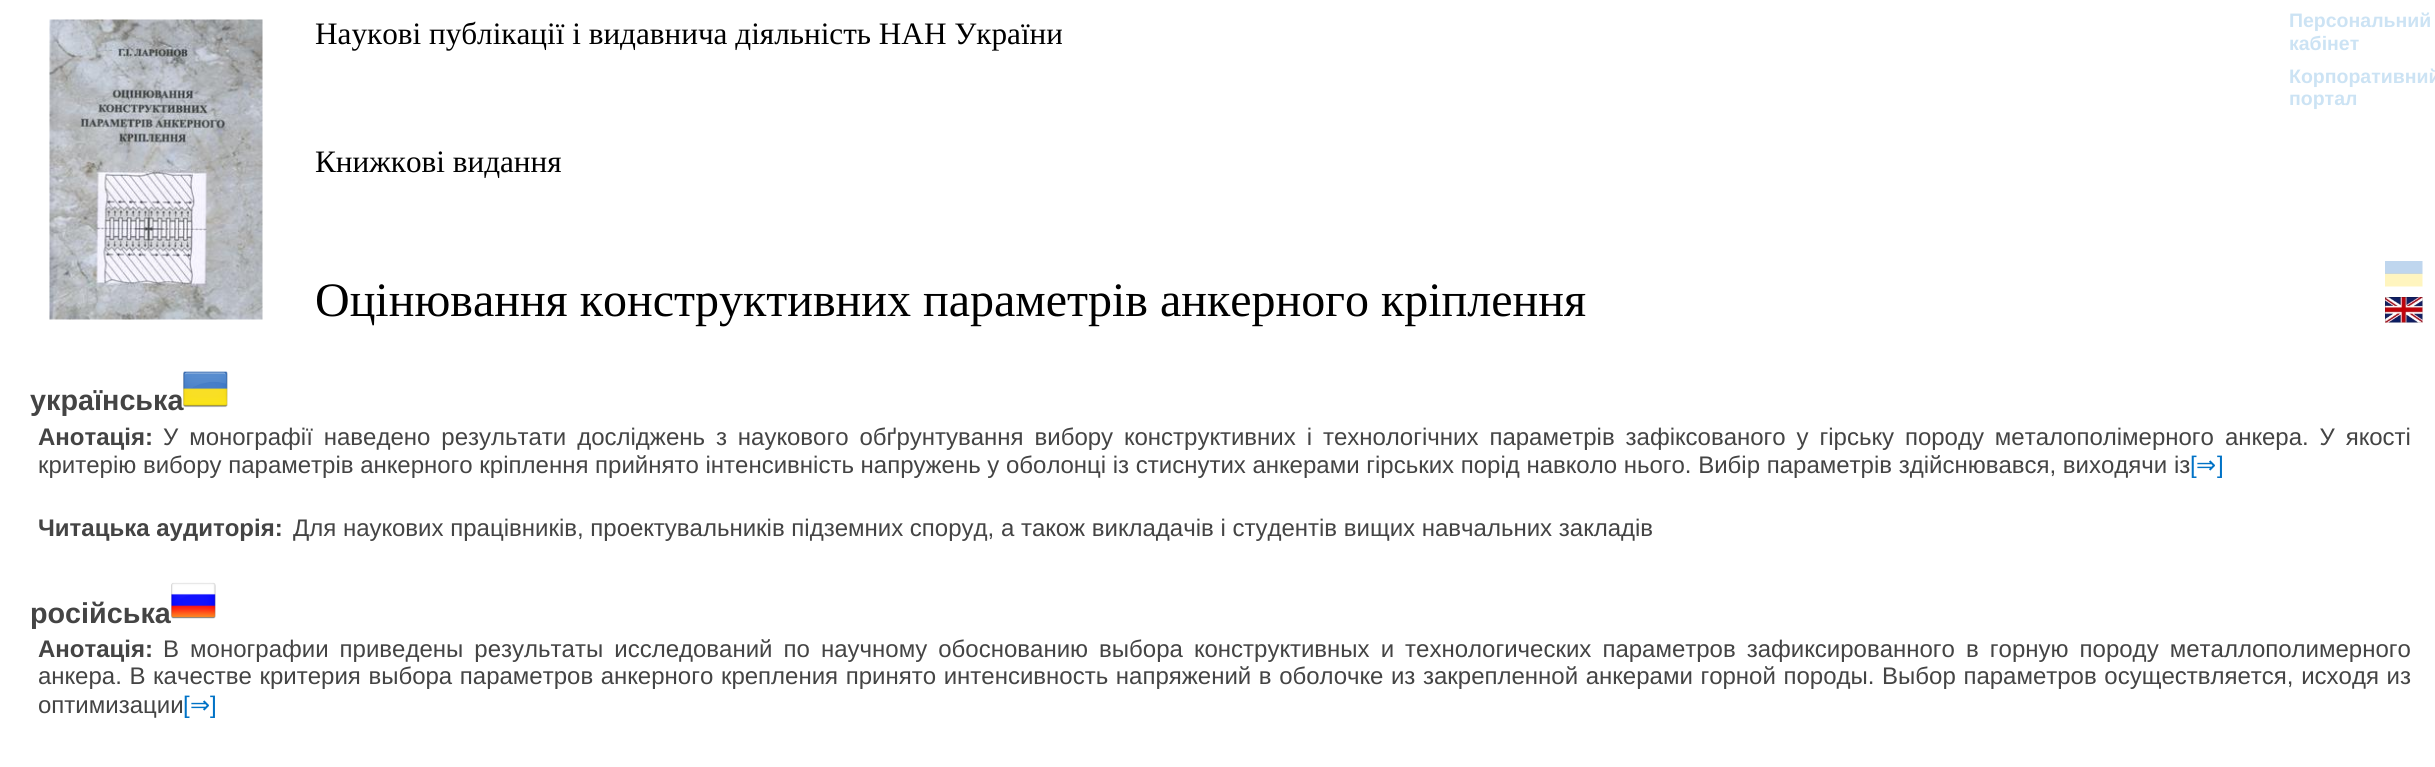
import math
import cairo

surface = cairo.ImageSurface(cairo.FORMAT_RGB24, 2435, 767)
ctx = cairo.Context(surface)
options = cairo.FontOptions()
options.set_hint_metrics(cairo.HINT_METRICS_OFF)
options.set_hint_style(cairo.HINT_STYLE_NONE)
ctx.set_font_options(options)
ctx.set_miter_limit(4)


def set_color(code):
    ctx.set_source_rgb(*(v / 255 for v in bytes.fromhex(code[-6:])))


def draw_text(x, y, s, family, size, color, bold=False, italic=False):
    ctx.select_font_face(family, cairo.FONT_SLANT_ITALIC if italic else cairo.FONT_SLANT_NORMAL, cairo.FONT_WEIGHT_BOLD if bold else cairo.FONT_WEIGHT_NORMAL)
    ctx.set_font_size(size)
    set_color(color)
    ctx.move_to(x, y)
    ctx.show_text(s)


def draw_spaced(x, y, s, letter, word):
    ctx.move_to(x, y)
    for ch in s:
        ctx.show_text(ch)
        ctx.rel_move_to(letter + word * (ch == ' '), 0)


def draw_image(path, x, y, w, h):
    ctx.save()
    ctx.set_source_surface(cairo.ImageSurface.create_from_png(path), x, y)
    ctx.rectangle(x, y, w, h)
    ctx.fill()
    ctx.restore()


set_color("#ffffff")
ctx.paint()
draw_image("assets/img1.png", 49, 19, 214, 301)
draw_text(315, 44, "Наукові публікації і видавнича діяльність НАН України", "Liberation Serif", 31.2, "#000000")
draw_text(2289, 27, "Персональний", "Liberation Sans", 19.5, "#cce3f4", bold=True)
draw_text(2289, 50, "кабінет", "Liberation Sans", 19.5, "#cce3f4", bold=True)
draw_text(2289, 83, "Корпоративний", "Liberation Sans", 19.5, "#cce3f4", bold=True)
draw_text(2289, 105, "портал", "Liberation Sans", 19.5, "#cce3f4", bold=True)
draw_text(315, 172, "Книжкові видання", "Liberation Serif", 31.2, "#000000")
draw_image("assets/img2.png", 2385, 261, 38, 26)
draw_image("assets/img3.png", 2385, 297, 38, 26)
draw_text(315, 316, "Оцінювання конструктивних параметрів анкерного кріплення", "Liberation Serif", 48, "#000000")
draw_text(30, 410, "українська", "Liberation Sans", 28.75, "#444444", bold=True)
draw_image("assets/img4.png", 183, 371, 45, 37)
draw_text(38, 445, "Анотація:", "Liberation Sans", 24, "#444444", bold=True)
ctx.select_font_face("Liberation Sans")
draw_spaced(163, 445, "У монографії наведено результати досліджень з наукового обґрунтування вибору конструктивних і технологічних параметрів зафіксованого у гірську породу металополімерного анкера. У якості", 0, 4.25)
draw_text(38, 473, "критерію вибору параметрів анкерного кріплення прийнято інтенсивність напружень у оболонці із стиснутих анкерами гірських порід навколо нього. Вибір параметрів здійснювався, виходячи із", "Liberation Sans", 24, "#444444")
draw_text(2190, 473, "[", "Liberation Sans", 24, "#0072c6")
draw_text(2196, 473, "⇒", "DejaVu Sans", 24, "#0072c6")
draw_text(2217, 473, "]", "Liberation Sans", 24, "#0072c6")
draw_text(38, 536, "Читацька аудиторія:", "Liberation Sans", 24, "#444444", bold=True)
draw_text(293, 536, "Для наукових працівників, проектувальників підземних споруд, а також викладачів і студентів вищих навчальних закладів", "Liberation Sans", 24, "#444444")
draw_text(30, 623, "російська", "Liberation Sans", 28.75, "#444444", bold=True)
draw_image("assets/img5.png", 171, 582, 45, 37)
draw_text(38, 657, "Анотація:", "Liberation Sans", 24, "#444444", bold=True)
ctx.select_font_face("Liberation Sans")
draw_spaced(163, 657, "В монографии приведены результаты исследований по научному обоснованию выбора конструктивных и технологических параметров зафиксированного в горную породу металлополимерного", 0, 4.4)
draw_spaced(38, 684, "анкера. В качестве критерия выбора параметров анкерного крепления принято интенсивность напряжений в оболочке из закрепленной анкерами горной породы. Выбор параметров осуществляется, исходя из", 0, 0.95)
draw_text(38, 713, "оптимизации", "Liberation Sans", 24, "#444444")
draw_text(183, 713, "[", "Liberation Sans", 24, "#0072c6")
draw_text(190, 713, "⇒", "DejaVu Sans", 24, "#0072c6")
draw_text(210, 713, "]", "Liberation Sans", 24, "#0072c6")
surface.write_to_png("output.png")
